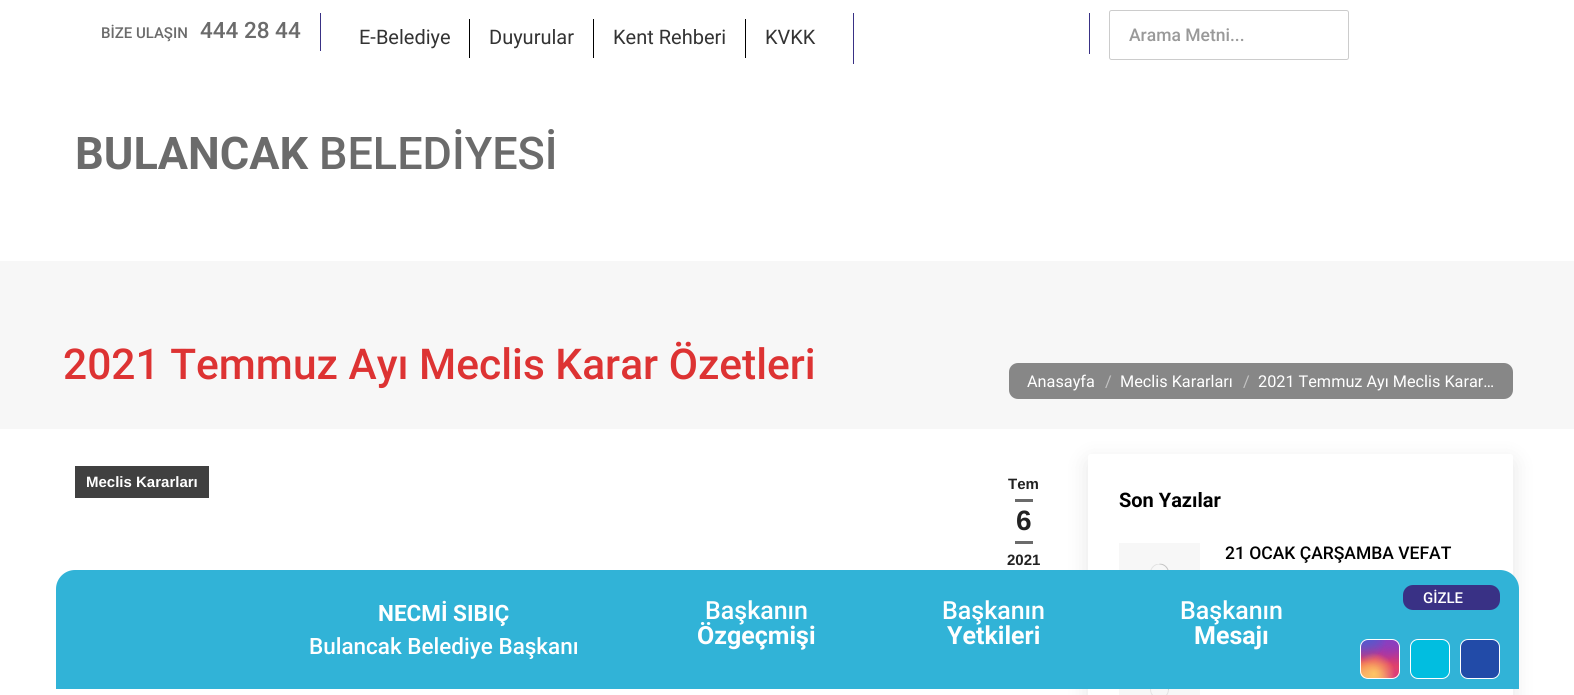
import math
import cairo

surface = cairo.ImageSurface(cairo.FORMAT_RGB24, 1574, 695)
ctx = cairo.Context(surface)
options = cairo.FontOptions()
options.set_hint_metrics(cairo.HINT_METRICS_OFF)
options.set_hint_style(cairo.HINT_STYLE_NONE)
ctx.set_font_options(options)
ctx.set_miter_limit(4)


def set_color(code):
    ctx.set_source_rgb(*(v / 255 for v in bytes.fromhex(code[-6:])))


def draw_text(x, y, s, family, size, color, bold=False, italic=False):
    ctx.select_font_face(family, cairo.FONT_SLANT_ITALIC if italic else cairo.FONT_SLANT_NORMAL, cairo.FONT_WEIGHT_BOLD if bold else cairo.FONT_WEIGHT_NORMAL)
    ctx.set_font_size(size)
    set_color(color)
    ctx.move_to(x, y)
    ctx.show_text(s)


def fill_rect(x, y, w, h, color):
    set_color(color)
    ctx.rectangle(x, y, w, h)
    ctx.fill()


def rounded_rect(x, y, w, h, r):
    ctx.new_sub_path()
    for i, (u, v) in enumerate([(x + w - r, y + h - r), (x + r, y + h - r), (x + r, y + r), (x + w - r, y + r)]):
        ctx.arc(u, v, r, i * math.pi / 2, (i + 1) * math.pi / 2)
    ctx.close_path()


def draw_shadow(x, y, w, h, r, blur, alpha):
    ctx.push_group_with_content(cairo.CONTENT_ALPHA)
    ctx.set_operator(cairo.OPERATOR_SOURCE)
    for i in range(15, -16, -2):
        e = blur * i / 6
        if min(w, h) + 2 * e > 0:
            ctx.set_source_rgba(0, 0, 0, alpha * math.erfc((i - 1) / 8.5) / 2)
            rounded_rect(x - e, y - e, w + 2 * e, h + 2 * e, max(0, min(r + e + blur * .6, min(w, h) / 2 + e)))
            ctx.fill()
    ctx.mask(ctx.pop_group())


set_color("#ffffff")
ctx.paint()
fill_rect(320, 13, 1, 38, "#393185")
draw_text(101, 38, "BİZE ULAŞIN", "Roboto Medium", 15, "#6b6b6b")
draw_text(200, 38, "444 28 44", "Roboto Medium", 22.5, "#6b6b6b")
fill_rect(853, 13, 1, 51, "#393185")
draw_text(359, 44, "E-Belediye", "Roboto", 20, "#333333")
fill_rect(469, 19, 1, 39, "#000000")
draw_text(489, 44, "Duyurular", "Roboto", 20, "#333333")
fill_rect(593, 19, 1, 39, "#000000")
draw_text(613, 44, "Kent Rehberi", "Roboto", 20, "#333333")
fill_rect(745, 19, 1, 39, "#000000")
draw_text(765, 44, "KVKK", "Roboto", 20, "#333333")
fill_rect(1089, 13, 1, 41, "#393185")
rounded_rect(1109.5, 10.5, 239, 49, 2)
set_color("#cccccc")
ctx.set_line_width(1)
ctx.stroke()
draw_text(1129, 41, "Arama Metni...", "Roboto Medium", 17.5, "#999999")
draw_text(75, 169, "BULANCAK", "Roboto", 45, "#6b6b6b", bold=True)
draw_text(319, 169, "BELEDİYESİ", "Roboto Medium", 45, "#6b6b6b")
fill_rect(0, 261, 1574, 168, "#f7f7f7")
draw_text(63, 379, "2021 Temmuz Ayı Meclis Karar Özetleri", "Roboto Medium", 42.5, "#dd3333")
set_color("#878787")
rounded_rect(1009, 363, 504, 36, 9)
ctx.fill()
draw_text(1027, 387, "Anasayfa", "Roboto", 16.25, "#ffffff")
draw_text(1105, 387, "/", "Roboto", 16.25, "#c3c3c3")
draw_text(1120, 387, "Meclis Kararları", "Roboto", 16.25, "#ffffff")
draw_text(1243, 387, "/", "Roboto", 16.25, "#c3c3c3")
draw_text(1258, 387, "2021 Temmuz Ayı Meclis Karar…", "Roboto", 16.25, "#ffffff")
fill_rect(75, 466, 134, 32, "#404040")
draw_text(86, 487, "Meclis Kararları", "Liberation Sans", 15, "#ffffff", bold=True)
draw_text(1008, 489, "Tem", "Liberation Sans", 15, "#222222", bold=True)
fill_rect(1015, 499, 18, 3, "#6b6b6b")
draw_text(1016, 530, "6", "Liberation Sans", 28, "#222222", bold=True)
fill_rect(1015, 541, 18, 3, "#6b6b6b")
draw_text(1007, 565, "2021", "Liberation Sans", 15, "#222222", bold=True)
set_color("#000000")
draw_shadow(1088, 461, 425, 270, 2.5, 11, 0.1)
set_color("#ffffff")
rounded_rect(1088, 454, 425, 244, 2.5)
ctx.fill()
draw_text(1119, 507, "Son Yazılar", "Roboto", 20, "#000000", bold=True)
fill_rect(1119, 543, 81, 27, "#f7f7f7")
ctx.save()
ctx.rectangle(1150, 564, 19, 19)
ctx.clip()
ctx.arc(1159.5, 573, 9, 0, 2 * math.pi)
set_color("#e3e3e3")
ctx.stroke()
ctx.restore()
ctx.new_path()
ctx.move_to(1168.5, 573)
ctx.curve_to(1168.5, 568, 1164.5, 564, 1159.5, 564)
ctx.set_source_rgba(0.408, 0.408, 0.408, 0.25)
ctx.stroke()
draw_text(1225, 559, "21 OCAK ÇARŞAMBA VEFAT", "Roboto Medium", 17.5, "#000000")
fill_rect(1119, 689, 81, 6, "#f7f7f7")
ctx.new_path()
ctx.arc(1159.5, 689.5, 9, 0, 2 * math.pi)
set_color("#e3e3e3")
ctx.stroke()
ctx.new_path()
ctx.move_to(1168.5, 689.5)
ctx.curve_to(1168.5, 684.5, 1164.5, 680.5, 1159.5, 680.5)
ctx.set_source_rgba(0.408, 0.408, 0.408, 0.25)
ctx.stroke()
set_color("#31b3d7")
ctx.new_path()
ctx.move_to(75, 570)
ctx.line_to(1500, 570)
ctx.curve_to(1510.5, 570, 1519, 578.5, 1519, 589)
ctx.line_to(1519, 689)
ctx.line_to(56, 689)
ctx.line_to(56, 589)
ctx.curve_to(56, 578.5, 64.5, 570, 75, 570)
ctx.close_path()
ctx.fill()
set_color("#393185")
rounded_rect(1403, 585, 97, 25, 10)
ctx.fill()
draw_text(1423, 603, "GİZLE", "Roboto Medium", 15, "#ffffff")
ctx.save()
rounded_rect(1360, 639, 40, 40, 8)
ctx.clip()
gradient = cairo.LinearGradient(1380, 640, 1380, 678)
gradient.add_color_stop_rgba(0, 0.396, 0.349, 0.792, 1)
gradient.add_color_stop_rgba(0.3, 0.737, 0.192, 0.561, 1)
gradient.add_color_stop_rgba(0.5, 0.89, 0.247, 0.373, 1)
gradient.add_color_stop_rgba(0.7, 0.969, 0.463, 0.22, 1)
gradient.add_color_stop_rgba(1, 0.996, 0.776, 0.427, 1)
ctx.set_source(gradient)
ctx.rectangle(1360, 640, 40, 38)
ctx.fill()
gradient = cairo.RadialGradient(1399, 678, 0, 1399, 678, 53)
gradient.add_color_stop_rgba(0, 0.851, 0.192, 0.478, 1)
gradient.add_color_stop_rgba(1, 0.851, 0.192, 0.478, 0)
ctx.set_source(gradient)
ctx.rectangle(1361, 640, 38, 38)
ctx.fill()
gradient = cairo.RadialGradient(0, 0, 0, 0, 0, 1)
gradient.set_matrix(cairo.Matrix(1 / 32, 0, 0, 1 / 64, -1 * 1384 / 32, -1 * 633 / 64))
gradient.add_color_stop_rgba(0, 0.537, 0.239, 0.761, 1)
gradient.add_color_stop_rgba(0.5, 0.537, 0.239, 0.761, 0)
ctx.set_source(gradient)
ctx.rectangle(1369, 640, 30, 24)
ctx.fill()
gradient = cairo.RadialGradient(1399, 640, 0, 1399, 640, 53)
gradient.add_color_stop_rgba(0, 0.537, 0.239, 0.761, 1)
gradient.add_color_stop_rgba(0.5, 0.537, 0.239, 0.761, 0)
ctx.set_source(gradient)
ctx.rectangle(1373, 640, 26, 26)
ctx.fill()
gradient = cairo.RadialGradient(0, 0, 0, 0, 0, 1)
gradient.set_matrix(cairo.Matrix(1 / 42, 0, 0, 1 / 80, -1 * 1369 / 42, -1 * 621 / 80))
gradient.add_color_stop_rgba(0, 0.322, 0.345, 0.812, 1)
gradient.add_color_stop_rgba(0.5, 0.322, 0.345, 0.812, 0)
ctx.set_source(gradient)
ctx.rectangle(1361, 640, 26, 20)
ctx.fill()
gradient = cairo.RadialGradient(0, 0, 0, 0, 0, 1)
gradient.set_matrix(cairo.Matrix(1 / 53, 0, 0, 1 / 66, -1 * 1361 / 53, -1 * 631 / 66))
gradient.add_color_stop_rgba(0, 0.322, 0.345, 0.812, 1)
gradient.add_color_stop_rgba(0.5, 0.322, 0.345, 0.812, 0)
ctx.set_source(gradient)
ctx.rectangle(1361, 640, 25, 23)
ctx.fill()
gradient = cairo.RadialGradient(1361, 693, 0, 1361, 693, 65)
gradient.add_color_stop_rgba(0, 0.996, 0.773, 0.392, 1)
gradient.add_color_stop_rgba(0.5, 0.996, 0.773, 0.392, 0)
ctx.set_source(gradient)
ctx.rectangle(1361, 661, 28, 17)
ctx.fill()
gradient = cairo.RadialGradient(1374, 674, 0, 1374, 674, 42)
gradient.add_color_stop_rgba(0, 0.996, 0.773, 0.392, 1)
gradient.add_color_stop_rgba(0.5, 0.996, 0.773, 0.392, 0)
ctx.set_source(gradient)
ctx.rectangle(1361, 653, 34, 25)
ctx.fill()
ctx.restore()
rounded_rect(1360.5, 639.5, 39, 39, 7.5)
ctx.stroke()
set_color("#01bee0")
rounded_rect(1410.5, 639.5, 39, 39, 7.5)
ctx.fill_preserve()
set_color("#ffffff")
ctx.stroke()
set_color("#224ba8")
rounded_rect(1460.5, 639.5, 39, 39, 7.5)
ctx.fill_preserve()
set_color("#ffffff")
ctx.stroke()
draw_text(378, 621, "NECMİ SIBIÇ", "Roboto", 22.5, "#ffffff", bold=True)
draw_text(309, 654, "Bulancak Belediye Başkanı", "Roboto Medium", 22.5, "#ffffff")
draw_text(705, 619, "Başkanın", "Roboto Medium", 25, "#ffffff")
draw_text(697, 644, "Özgeçmişi", "Roboto", 25, "#ffffff", bold=True)
draw_text(942, 619, "Başkanın", "Roboto Medium", 25, "#ffffff")
draw_text(947, 644, "Yetkileri", "Roboto", 25, "#ffffff", bold=True)
draw_text(1180, 619, "Başkanın", "Roboto Medium", 25, "#ffffff")
draw_text(1194, 644, "Mesajı", "Roboto", 25, "#ffffff", bold=True)
surface.write_to_png("output.png")
